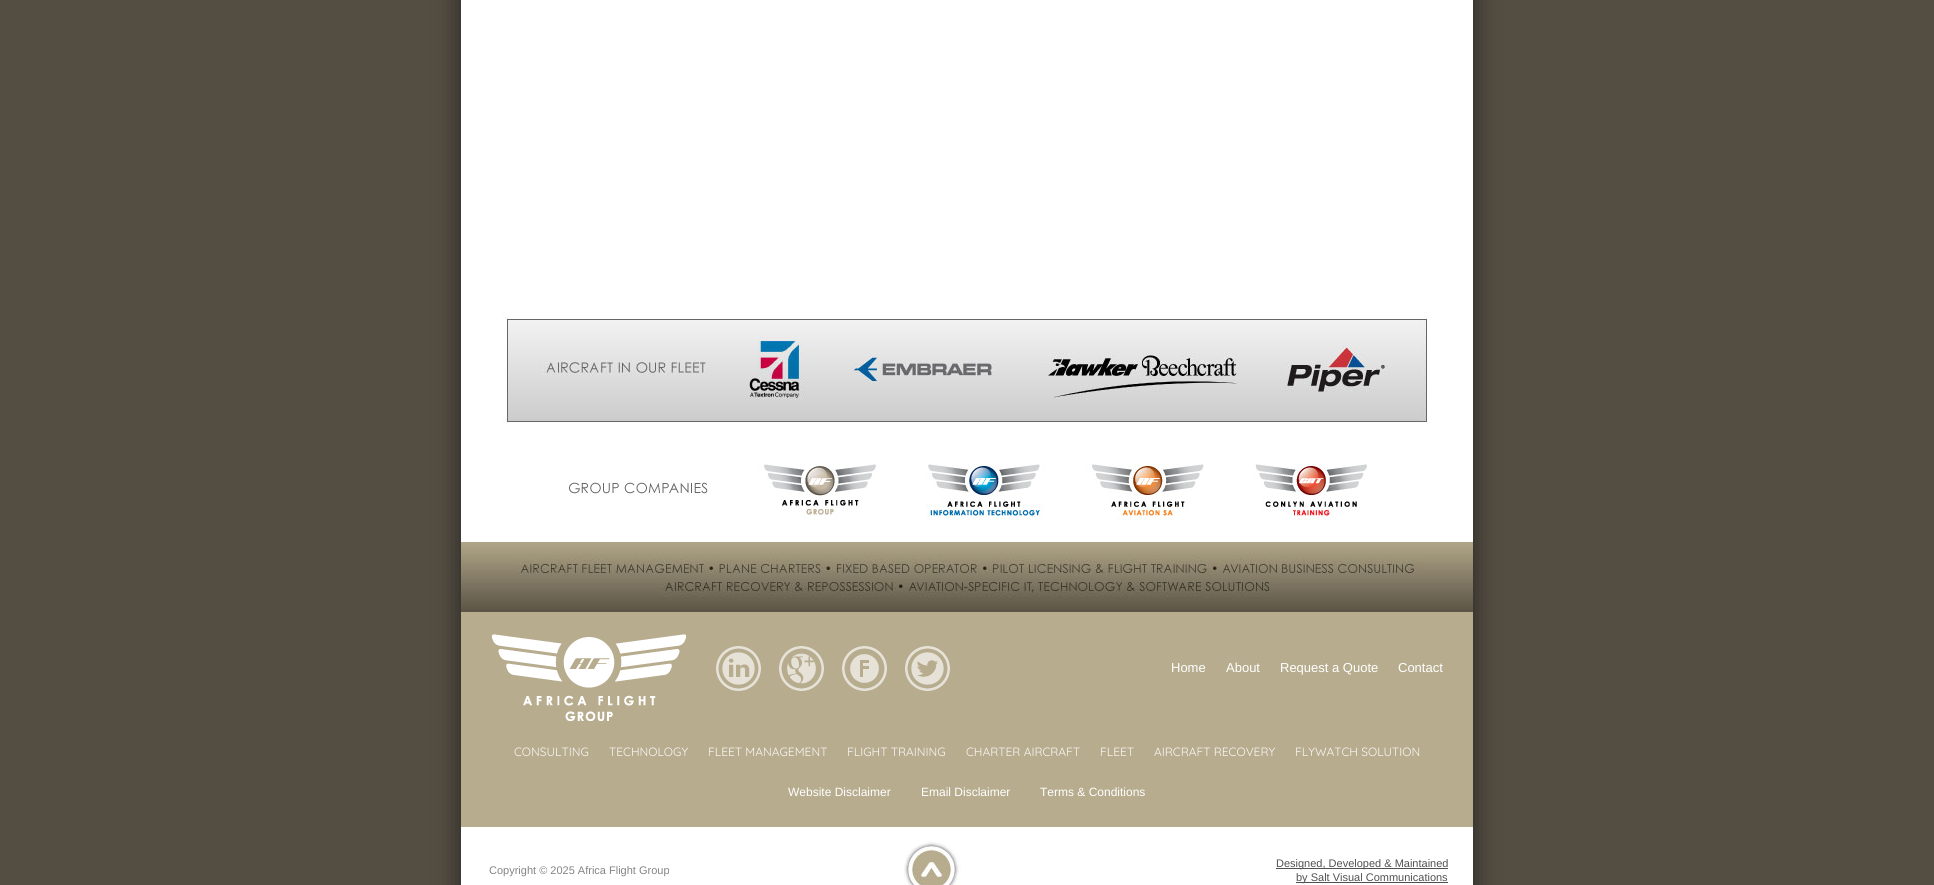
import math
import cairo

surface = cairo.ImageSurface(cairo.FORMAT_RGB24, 1934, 885)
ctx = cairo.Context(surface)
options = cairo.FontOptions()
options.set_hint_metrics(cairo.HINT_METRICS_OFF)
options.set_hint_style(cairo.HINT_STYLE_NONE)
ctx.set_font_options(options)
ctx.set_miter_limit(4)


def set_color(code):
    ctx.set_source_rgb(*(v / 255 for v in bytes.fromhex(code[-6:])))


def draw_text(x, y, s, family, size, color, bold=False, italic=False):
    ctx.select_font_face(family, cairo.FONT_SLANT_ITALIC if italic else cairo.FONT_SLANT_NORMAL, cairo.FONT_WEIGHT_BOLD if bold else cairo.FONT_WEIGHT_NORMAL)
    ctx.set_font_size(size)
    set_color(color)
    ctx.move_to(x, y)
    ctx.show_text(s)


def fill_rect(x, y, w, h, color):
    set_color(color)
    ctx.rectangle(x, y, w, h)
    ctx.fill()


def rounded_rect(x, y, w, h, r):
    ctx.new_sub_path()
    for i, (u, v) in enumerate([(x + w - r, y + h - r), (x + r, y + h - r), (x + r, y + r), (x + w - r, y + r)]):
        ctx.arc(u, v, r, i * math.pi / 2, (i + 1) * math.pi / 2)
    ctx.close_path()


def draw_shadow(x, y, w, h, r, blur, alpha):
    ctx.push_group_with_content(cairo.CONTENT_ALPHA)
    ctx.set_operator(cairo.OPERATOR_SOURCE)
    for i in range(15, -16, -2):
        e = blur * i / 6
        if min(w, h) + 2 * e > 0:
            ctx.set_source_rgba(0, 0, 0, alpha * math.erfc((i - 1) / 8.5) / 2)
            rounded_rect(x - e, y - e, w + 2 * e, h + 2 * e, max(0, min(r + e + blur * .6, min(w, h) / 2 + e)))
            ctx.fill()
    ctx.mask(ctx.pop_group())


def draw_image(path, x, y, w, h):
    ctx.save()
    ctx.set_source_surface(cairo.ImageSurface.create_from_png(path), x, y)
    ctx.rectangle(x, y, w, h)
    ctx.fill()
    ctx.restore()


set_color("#544d41")
ctx.paint()
set_color("#232323")
draw_shadow(461, -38, 1012, 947, 0, 12.5, 1)
fill_rect(461, 0, 1012, 885, "#ffffff")
draw_image("assets/img1.png", 503, 312, 926, 112)
draw_image("assets/img2.png", 567, 464, 800, 56)
draw_image("assets/img3.png", 461, 542, 1012, 70)
fill_rect(461, 612, 1012, 215, "#b7ac8e")
draw_image("assets/img4.png", 492, 634, 194, 87)
draw_image("assets/img5.png", 716, 646, 45, 45)
draw_image("assets/img6.png", 779, 646, 45, 45)
draw_image("assets/img7.png", 842, 646, 45, 45)
draw_image("assets/img8.png", 905, 646, 45, 45)
draw_text(1171, 672, "Home", "Liberation Sans", 13, "#ffffff")
draw_text(1226, 672, "About", "Liberation Sans", 13, "#ffffff")
draw_text(1280, 672, "Request a Quote", "Liberation Sans", 13, "#ffffff")
draw_text(1398, 672, "Contact", "Liberation Sans", 13, "#ffffff")
draw_text(514, 756, "CONSULTING", "Quicksand Light", 12, "#faf7f7")
draw_text(609, 756, "TECHNOLOGY", "Quicksand Light", 12, "#faf7f7")
draw_text(708, 756, "FLEET MANAGEMENT", "Quicksand Light", 12, "#faf7f7")
draw_text(847, 756, "FLIGHT TRAINING", "Quicksand Light", 12, "#faf7f7")
draw_text(966, 756, "CHARTER AIRCRAFT", "Quicksand Light", 12, "#faf7f7")
draw_text(1100, 756, "FLEET", "Quicksand Light", 12, "#faf7f7")
draw_text(1154, 756, "AIRCRAFT RECOVERY", "Quicksand Light", 12, "#faf7f7")
draw_text(1295, 756, "FLYWATCH SOLUTION", "Quicksand Light", 12, "#faf7f7")
draw_text(788, 796, "Website Disclaimer", "Liberation Sans", 12, "#ffffff")
draw_text(921, 796, "Email Disclaimer", "Liberation Sans", 12, "#ffffff")
draw_text(1040, 796, "Terms & Conditions", "Liberation Sans", 12, "#ffffff")
draw_text(489, 874, "Copyright © 2025 Africa Flight Group", "Liberation Sans", 11, "#848484")
draw_image("assets/img9.png", 904, 842, 57, 43)
fill_rect(1276, 868, 172, 1, "#525151")
draw_text(1276, 867, "Designed, Developed & Maintained", "Liberation Sans", 11, "#525151")
fill_rect(1296, 882, 152, 1, "#525151")
draw_text(1296, 881, "by Salt Visual Communications", "Liberation Sans", 11, "#525151")
surface.write_to_png("output.png")
